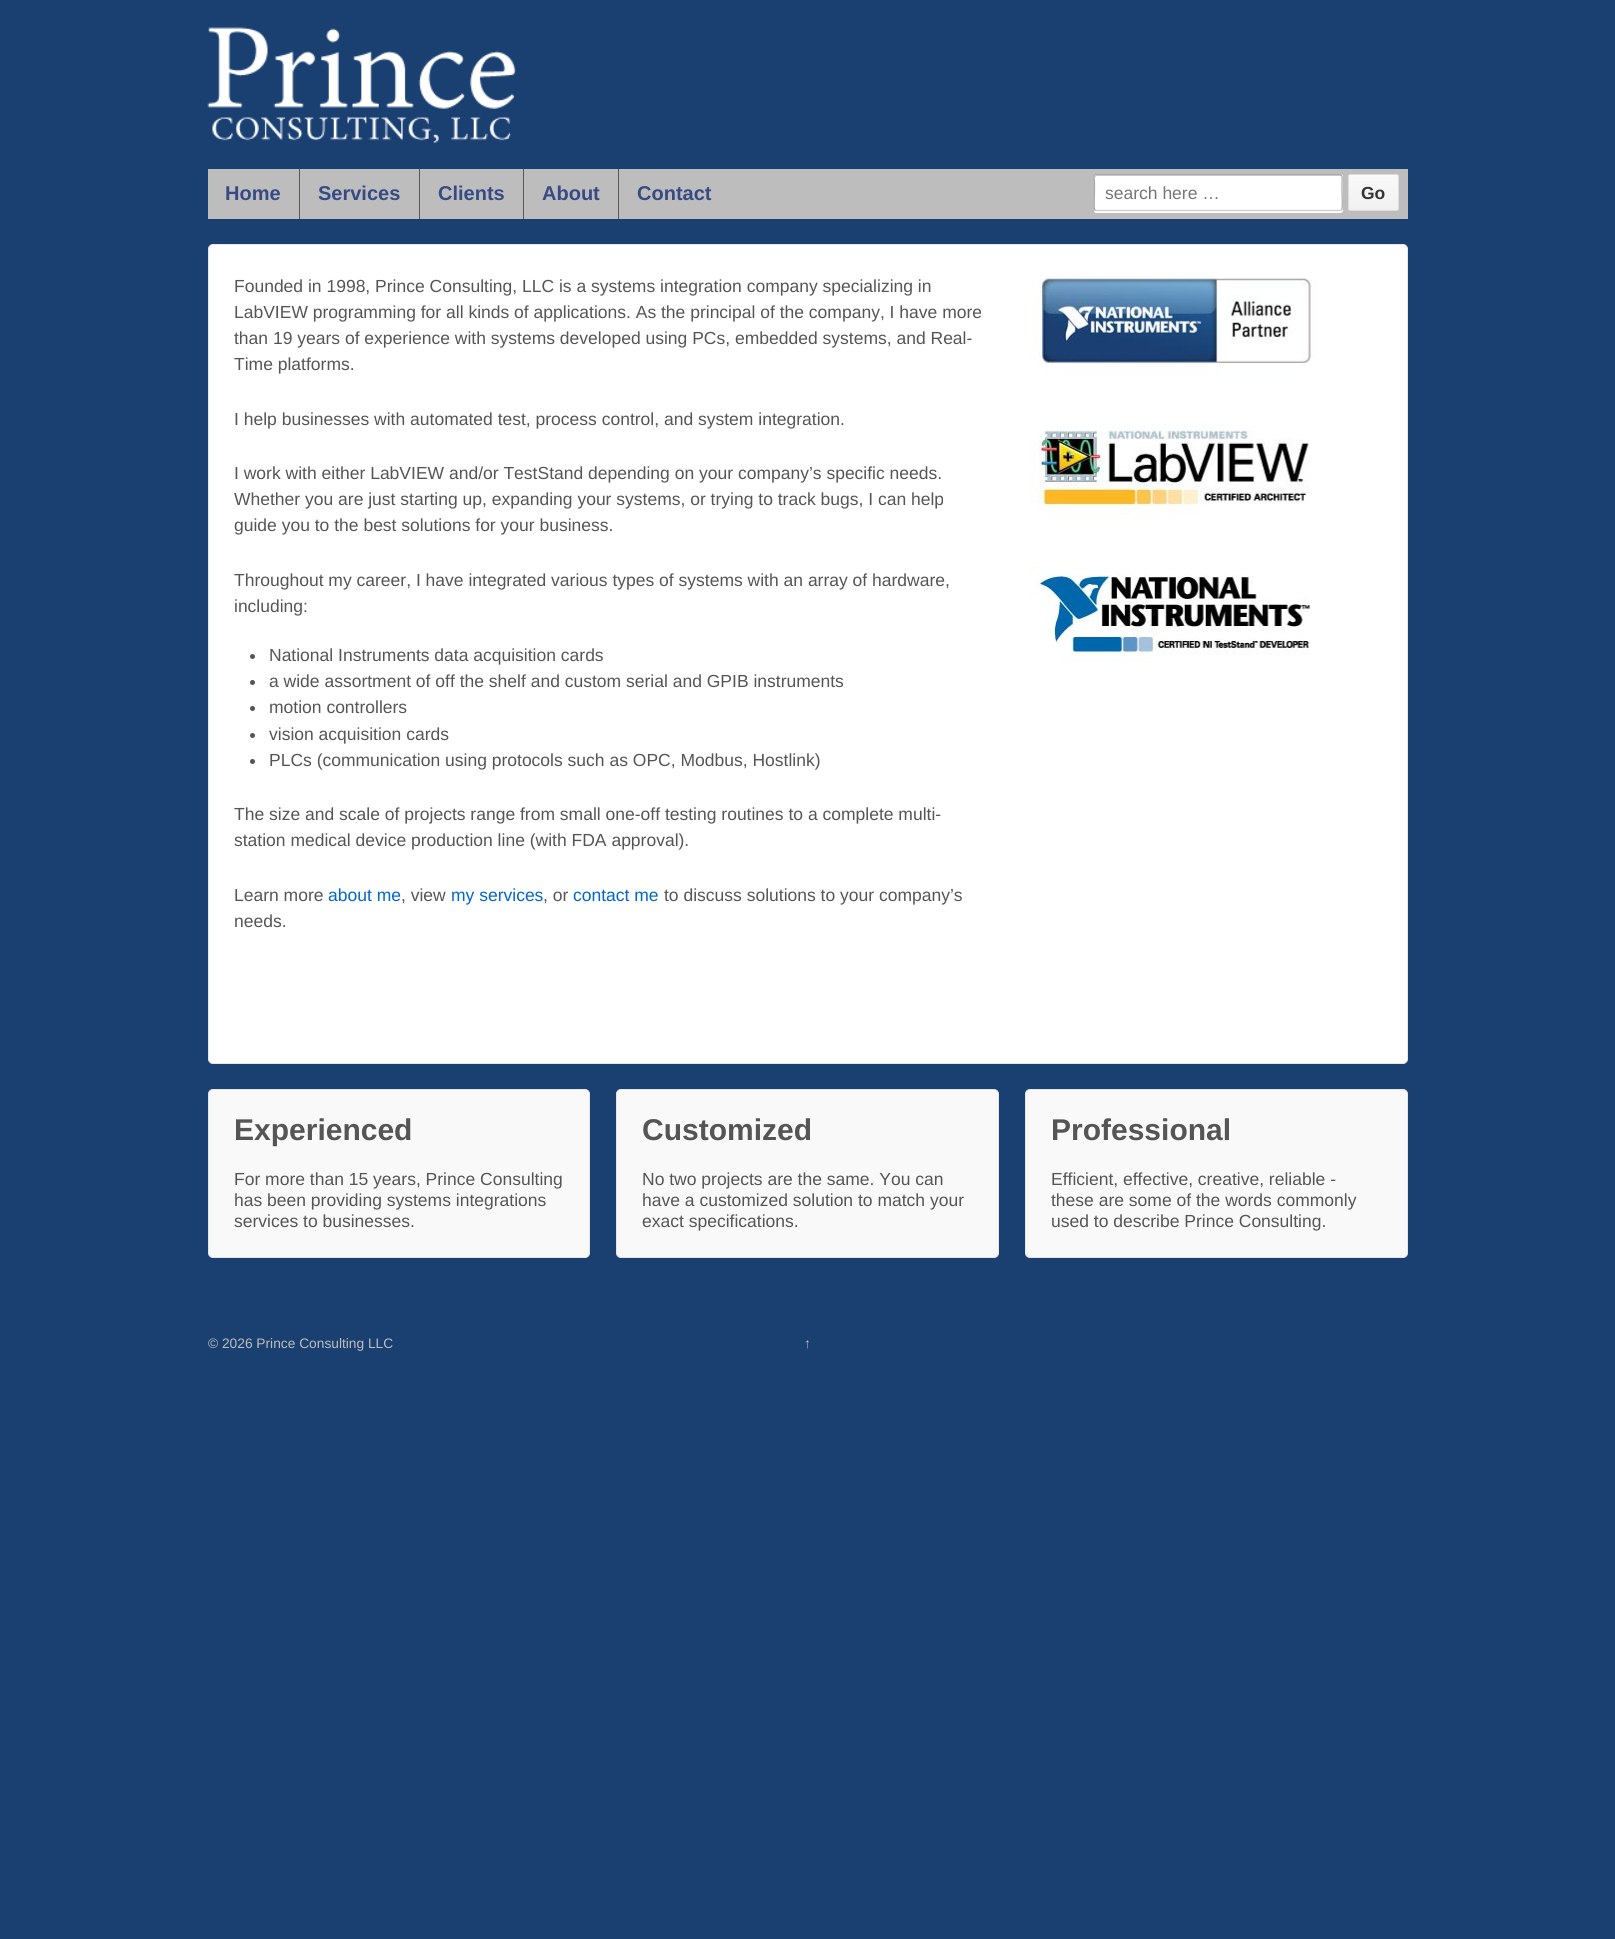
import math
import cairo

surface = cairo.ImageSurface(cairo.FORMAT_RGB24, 1615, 1939)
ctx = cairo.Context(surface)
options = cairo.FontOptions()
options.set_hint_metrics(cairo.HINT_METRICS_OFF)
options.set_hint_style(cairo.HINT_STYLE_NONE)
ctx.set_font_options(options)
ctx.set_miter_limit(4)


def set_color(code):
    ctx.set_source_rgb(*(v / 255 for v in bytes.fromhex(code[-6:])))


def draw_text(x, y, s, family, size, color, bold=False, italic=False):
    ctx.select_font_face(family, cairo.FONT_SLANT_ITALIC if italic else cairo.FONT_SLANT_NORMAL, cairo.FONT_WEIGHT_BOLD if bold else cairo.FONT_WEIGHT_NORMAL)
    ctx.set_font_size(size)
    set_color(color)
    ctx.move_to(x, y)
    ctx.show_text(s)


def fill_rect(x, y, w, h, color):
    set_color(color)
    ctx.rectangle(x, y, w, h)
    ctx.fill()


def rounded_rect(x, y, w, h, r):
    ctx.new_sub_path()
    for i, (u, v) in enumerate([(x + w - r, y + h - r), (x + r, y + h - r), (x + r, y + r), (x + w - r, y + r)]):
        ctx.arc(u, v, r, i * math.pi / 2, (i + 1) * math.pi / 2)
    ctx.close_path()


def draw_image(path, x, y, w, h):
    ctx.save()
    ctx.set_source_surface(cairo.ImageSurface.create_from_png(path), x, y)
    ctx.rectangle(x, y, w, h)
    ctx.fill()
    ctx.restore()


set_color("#1a4072")
ctx.paint()
draw_image("assets/img1.png", 207, 27, 309, 117)
fill_rect(208, 169, 1200, 50, "#bdbdbd")
draw_text(225, 200, "Home", "Liberation Sans", 20, "#374a84", bold=True)
fill_rect(299, 169, 1, 50, "#585858")
draw_text(318, 200, "Services", "Liberation Sans", 20, "#374a84", bold=True)
fill_rect(419, 169, 1, 50, "#585858")
draw_text(438, 200, "Clients", "Liberation Sans", 20, "#374a84", bold=True)
fill_rect(523, 169, 1, 50, "#585858")
draw_text(542, 200, "About", "Liberation Sans", 20, "#374a84", bold=True)
fill_rect(618, 169, 1, 50, "#585858")
draw_text(637, 200, "Contact", "Liberation Sans", 20, "#374a84", bold=True)
set_color("#ffffff")
ctx.new_path()
ctx.move_to(1094, 210)
ctx.curve_to(1094, 212, 1095, 213, 1096, 213)
ctx.line_to(1340, 213)
ctx.curve_to(1342, 213, 1343, 212, 1343, 210)
ctx.line_to(1343, 178)
ctx.line_to(1342, 176)
ctx.line_to(1342, 209)
ctx.curve_to(1342, 210, 1341, 211, 1340, 211)
ctx.line_to(1096, 211)
ctx.curve_to(1095, 211, 1094, 211, 1094, 210)
ctx.close_path()
ctx.fill()
rounded_rect(1094, 174, 249, 37, 2.5)
ctx.fill()
set_color("#cccccc")
ctx.new_path()
ctx.move_to(1096, 176)
ctx.line_to(1340, 176)
ctx.curve_to(1341, 176, 1341, 177, 1341, 178)
ctx.line_to(1341, 175)
ctx.line_to(1096, 175)
ctx.curve_to(1095, 175, 1095, 177, 1095, 178)
ctx.close_path()
ctx.fill()
ctx.new_path()
ctx.move_to(1341.5, 210)
ctx.line_to(1340, 210.5)
ctx.line_to(1096, 210.5)
ctx.line_to(1095, 210)
ctx.set_line_width(1.2)
ctx.stroke()
ctx.new_path()
ctx.move_to(1095, 210)
ctx.curve_to(1093.5, 208.5, 1094.5, 195, 1094.5, 192.5)
ctx.line_to(1094.5, 181.5)
ctx.curve_to(1094.5, 181, 1093, 174.5, 1096, 174.5)
ctx.line_to(1340, 174.5)
ctx.curve_to(1343, 174.5, 1342, 181, 1342, 181.5)
ctx.line_to(1342, 192.5)
ctx.curve_to(1342, 195, 1343, 208.5, 1341.5, 210)
set_color("#aaaaaa")
ctx.stroke()
draw_text(1105, 199, "search here …", "Liberation Sans", 17.5, "#757575")
ctx.save()
rounded_rect(1348, 174, 51, 37, 2.5)
ctx.clip()
gradient = cairo.LinearGradient(1373, 175, 1373, 210)
gradient.add_color_stop_rgba(0, 0.976, 0.976, 0.976, 1)
gradient.add_color_stop_rgba(1, 0.945, 0.945, 0.945, 1)
ctx.set_source(gradient)
ctx.rectangle(1348, 175, 51, 35)
ctx.fill()
ctx.restore()
set_color("#fbfbfb")
ctx.set_fill_rule(cairo.FILL_RULE_EVEN_ODD)
ctx.new_path()
ctx.move_to(1350, 176)
ctx.line_to(1392, 176)
ctx.curve_to(1399, 176, 1398, 177, 1398, 183)
ctx.curve_to(1398, 173, 1400, 175, 1389, 175)
ctx.line_to(1358, 175)
ctx.curve_to(1354, 175, 1349, 173, 1349, 177)
ctx.close_path()
ctx.move_to(1398, 205)
ctx.line_to(1398, 210)
ctx.close_path()
ctx.fill()
rounded_rect(1348.5, 174.5, 50, 36, 2)
set_color("#dddddd")
ctx.set_line_width(1)
ctx.stroke()
draw_text(1361, 199, "Go", "Liberation Sans", 17.5, "#333333", bold=True)
set_color("#ffffff")
rounded_rect(208.5, 244.5, 1199, 819, 4.5)
ctx.fill_preserve()
set_color("#e5e5e5")
ctx.stroke()
draw_text(234, 292, "Founded in 1998, Prince Consulting, LLC is a systems integration company specializing in", "Liberation Sans", 17.5, "#555555")
draw_text(234, 318, "LabVIEW programming for all kinds of applications. As the principal of the company, I have more", "Liberation Sans", 17.5, "#555555")
draw_text(234, 344, "than 19 years of experience with systems developed using PCs, embedded systems, and Real-", "Liberation Sans", 17.5, "#555555")
draw_text(234, 370, "Time platforms.", "Liberation Sans", 17.5, "#555555")
draw_text(234, 425, "I help businesses with automated test, process control, and system integration.", "Liberation Sans", 17.5, "#555555")
draw_text(234, 479, "I work with either LabVIEW and/or TestStand depending on your company’s specific needs.", "Liberation Sans", 17.5, "#555555")
draw_text(234, 505, "Whether you are just starting up, expanding your systems, or trying to track bugs, I can help", "Liberation Sans", 17.5, "#555555")
draw_text(234, 531, "guide you to the best solutions for your business.", "Liberation Sans", 17.5, "#555555")
draw_text(234, 586, "Throughout my career, I have integrated various types of systems with an array of hardware,", "Liberation Sans", 17.5, "#555555")
draw_text(234, 612, "including:", "Liberation Sans", 17.5, "#555555")
ctx.new_path()
ctx.arc(252.5, 656.5, 2.5, 0, 2 * math.pi)
ctx.fill()
draw_text(269, 661, "National Instruments data acquisition cards", "Liberation Sans", 17.5, "#555555")
ctx.new_path()
ctx.arc(252.5, 682.5, 2.5, 0, 2 * math.pi)
ctx.fill()
draw_text(269, 687, "a wide assortment of off the shelf and custom serial and GPIB instruments", "Liberation Sans", 17.5, "#555555")
ctx.new_path()
ctx.arc(252.5, 708.5, 2.5, 0, 2 * math.pi)
ctx.fill()
draw_text(269, 713, "motion controllers", "Liberation Sans", 17.5, "#555555")
ctx.new_path()
ctx.arc(252.5, 735.5, 2.5, 0, 2 * math.pi)
ctx.fill()
draw_text(269, 740, "vision acquisition cards", "Liberation Sans", 17.5, "#555555")
ctx.new_path()
ctx.arc(252.5, 761.5, 2.5, 0, 2 * math.pi)
ctx.fill()
draw_text(269, 766, "PLCs (communication using protocols such as OPC, Modbus, Hostlink)", "Liberation Sans", 17.5, "#555555")
draw_text(234, 820, "The size and scale of projects range from small one-off testing routines to a complete multi-", "Liberation Sans", 17.5, "#555555")
draw_text(234, 846, "station medical device production line (with FDA approval).", "Liberation Sans", 17.5, "#555555")
draw_text(234, 901, "Learn more", "Liberation Sans", 17.5, "#555555")
draw_text(328, 901, "about me", "Liberation Sans", 17.5, "#0066cc")
draw_text(401, 901, ", view", "Liberation Sans", 17.5, "#555555")
draw_text(451, 901, "my services", "Liberation Sans", 17.5, "#0066cc")
draw_text(543, 901, ", or", "Liberation Sans", 17.5, "#555555")
draw_text(573, 901, "contact me", "Liberation Sans", 17.5, "#0066cc")
draw_text(664, 901, "to discuss solutions to your company’s", "Liberation Sans", 17.5, "#555555")
draw_text(234, 927, "needs.", "Liberation Sans", 17.5, "#555555")
draw_image("assets/img2.png", 1030, 278, 286, 385)
set_color("#f9f9f9")
rounded_rect(208.5, 1089.5, 381, 168, 4.5)
ctx.fill_preserve()
set_color("#e5e5e5")
ctx.stroke()
draw_text(234, 1140, "Experienced", "Liberation Sans", 30, "#555555", bold=True)
draw_text(234, 1185, "For more than 15 years, Prince Consulting", "Liberation Sans", 17.5, "#555555")
draw_text(234, 1206, "has been providing systems integrations", "Liberation Sans", 17.5, "#555555")
draw_text(234, 1227, "services to businesses.", "Liberation Sans", 17.5, "#555555")
set_color("#f9f9f9")
rounded_rect(616.5, 1089.5, 382, 168, 4.5)
ctx.fill_preserve()
set_color("#e5e5e5")
ctx.stroke()
draw_text(642, 1140, "Customized", "Liberation Sans", 30, "#555555", bold=True)
draw_text(642, 1185, "No two projects are the same. You can", "Liberation Sans", 17.5, "#555555")
draw_text(642, 1206, "have a customized solution to match your", "Liberation Sans", 17.5, "#555555")
draw_text(642, 1227, "exact specifications.", "Liberation Sans", 17.5, "#555555")
set_color("#f9f9f9")
rounded_rect(1025.5, 1089.5, 382, 168, 4.5)
ctx.fill_preserve()
set_color("#e5e5e5")
ctx.stroke()
draw_text(1051, 1140, "Professional", "Liberation Sans", 30, "#555555", bold=True)
draw_text(1051, 1185, "Efficient, effective, creative, reliable -", "Liberation Sans", 17.5, "#555555")
draw_text(1051, 1206, "these are some of the words commonly", "Liberation Sans", 17.5, "#555555")
draw_text(1051, 1227, "used to describe Prince Consulting.", "Liberation Sans", 17.5, "#555555")
draw_text(208, 1348, "© 2026 Prince Consulting LLC", "Liberation Sans", 13.75, "#bdbdbd")
draw_text(804, 1348, "↑", "Liberation Sans", 13.75, "#bdbdbd")
surface.write_to_png("output.png")
